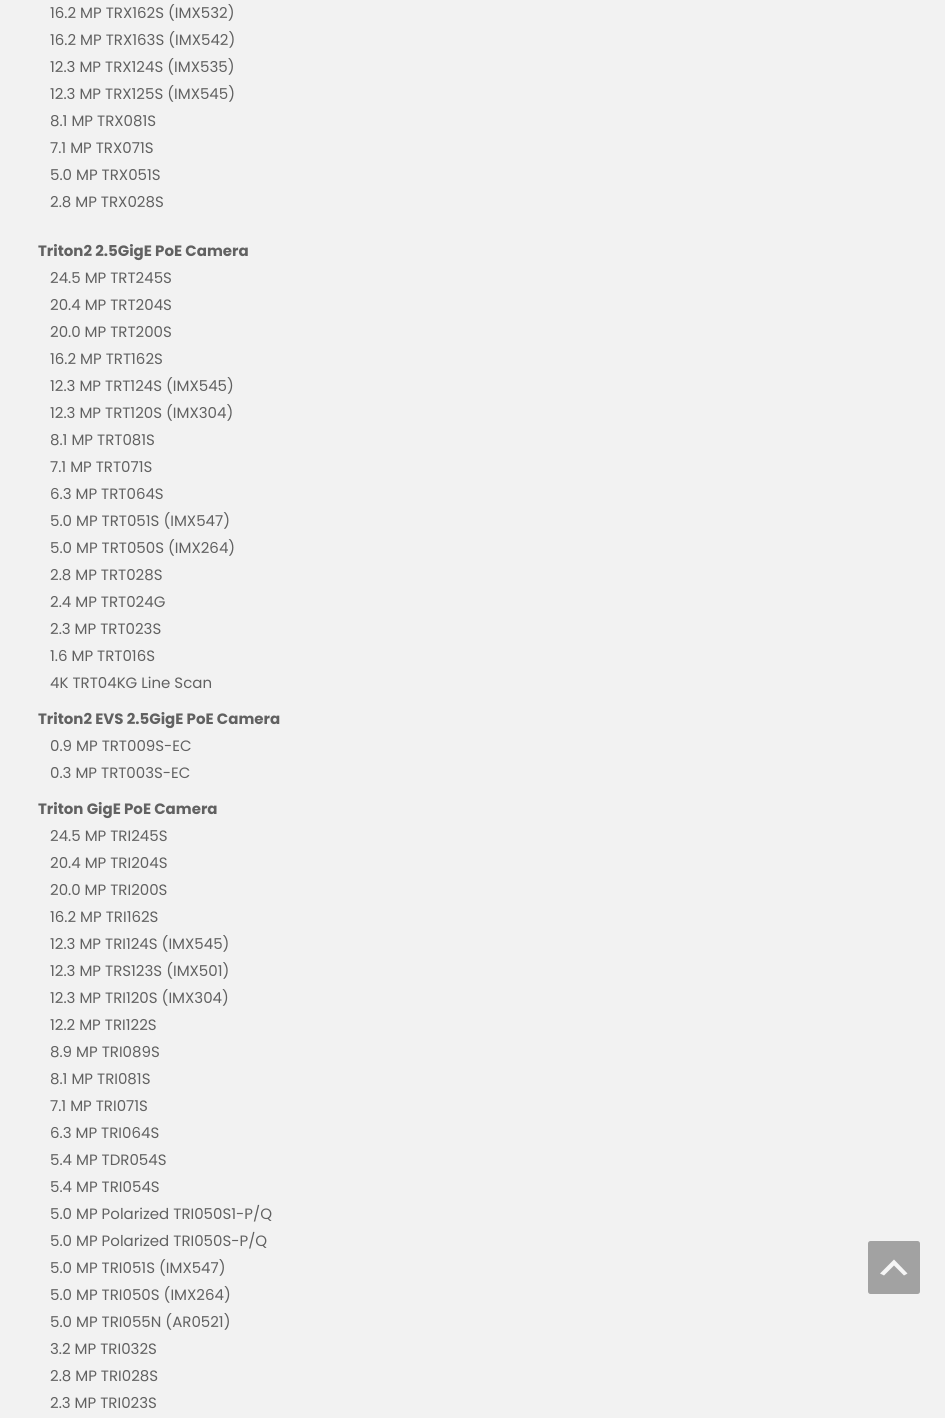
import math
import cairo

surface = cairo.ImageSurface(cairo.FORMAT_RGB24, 945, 1418)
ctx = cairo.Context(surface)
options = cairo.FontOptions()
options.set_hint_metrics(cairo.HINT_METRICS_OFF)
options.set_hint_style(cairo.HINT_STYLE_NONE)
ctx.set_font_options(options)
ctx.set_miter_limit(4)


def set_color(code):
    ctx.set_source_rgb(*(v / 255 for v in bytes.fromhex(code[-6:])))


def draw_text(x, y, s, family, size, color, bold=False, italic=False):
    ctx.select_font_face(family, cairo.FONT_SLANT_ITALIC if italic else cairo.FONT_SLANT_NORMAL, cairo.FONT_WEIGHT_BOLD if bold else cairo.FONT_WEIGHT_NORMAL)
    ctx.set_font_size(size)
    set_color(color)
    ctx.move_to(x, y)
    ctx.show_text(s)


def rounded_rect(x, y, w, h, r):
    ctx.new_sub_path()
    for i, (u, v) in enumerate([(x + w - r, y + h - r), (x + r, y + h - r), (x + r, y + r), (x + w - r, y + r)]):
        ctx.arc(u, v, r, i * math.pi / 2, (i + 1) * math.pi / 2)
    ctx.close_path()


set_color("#f2f2f2")
ctx.paint()
draw_text(50, 18, "16.2 MP TRX162S (IMX532)", "Poppins", 15, "#616161")
draw_text(50, 45, "16.2 MP TRX163S (IMX542)", "Poppins", 15, "#616161")
draw_text(50, 72, "12.3 MP TRX124S (IMX535)", "Poppins", 15, "#616161")
draw_text(50, 99, "12.3 MP TRX125S (IMX545)", "Poppins", 15, "#616161")
draw_text(50, 126, "8.1 MP TRX081S", "Poppins", 15, "#616161")
draw_text(50, 153, "7.1 MP TRX071S", "Poppins", 15, "#616161")
draw_text(50, 180, "5.0 MP TRX051S", "Poppins", 15, "#616161")
draw_text(50, 207, "2.8 MP TRX028S", "Poppins", 15, "#616161")
draw_text(38, 256, "Triton2 2.5GigE PoE Camera", "Poppins", 15, "#616161", bold=True)
draw_text(50, 283, "24.5 MP TRT245S", "Poppins", 15, "#616161")
draw_text(50, 310, "20.4 MP TRT204S", "Poppins", 15, "#616161")
draw_text(50, 337, "20.0 MP TRT200S", "Poppins", 15, "#616161")
draw_text(50, 364, "16.2 MP TRT162S", "Poppins", 15, "#616161")
draw_text(50, 391, "12.3 MP TRT124S (IMX545)", "Poppins", 15, "#616161")
draw_text(50, 418, "12.3 MP TRT120S (IMX304)", "Poppins", 15, "#616161")
draw_text(50, 445, "8.1 MP TRT081S", "Poppins", 15, "#616161")
draw_text(50, 472, "7.1 MP TRT071S", "Poppins", 15, "#616161")
draw_text(50, 499, "6.3 MP TRT064S", "Poppins", 15, "#616161")
draw_text(50, 526, "5.0 MP TRT051S (IMX547)", "Poppins", 15, "#616161")
draw_text(50, 553, "5.0 MP TRT050S (IMX264)", "Poppins", 15, "#616161")
draw_text(50, 580, "2.8 MP TRT028S", "Poppins", 15, "#616161")
draw_text(50, 607, "2.4 MP TRT024G", "Poppins", 15, "#616161")
draw_text(50, 634, "2.3 MP TRT023S", "Poppins", 15, "#616161")
draw_text(50, 661, "1.6 MP TRT016S", "Poppins", 15, "#616161")
draw_text(50, 688, "4K TRT04KG Line Scan", "Poppins", 15, "#616161")
draw_text(38, 724, "Triton2 EVS 2.5GigE PoE Camera", "Poppins", 15, "#616161", bold=True)
draw_text(50, 751, "0.9 MP TRT009S-EC", "Poppins", 15, "#616161")
draw_text(50, 778, "0.3 MP TRT003S-EC", "Poppins", 15, "#616161")
draw_text(38, 814, "Triton GigE PoE Camera", "Poppins", 15, "#616161", bold=True)
draw_text(50, 841, "24.5 MP TRI245S", "Poppins", 15, "#616161")
draw_text(50, 868, "20.4 MP TRI204S", "Poppins", 15, "#616161")
draw_text(50, 895, "20.0 MP TRI200S", "Poppins", 15, "#616161")
draw_text(50, 922, "16.2 MP TRI162S", "Poppins", 15, "#616161")
draw_text(50, 949, "12.3 MP TRI124S (IMX545)", "Poppins", 15, "#616161")
draw_text(50, 976, "12.3 MP TRS123S (IMX501)", "Poppins", 15, "#616161")
draw_text(50, 1003, "12.3 MP TRI120S (IMX304)", "Poppins", 15, "#616161")
draw_text(50, 1030, "12.2 MP TRI122S", "Poppins", 15, "#616161")
draw_text(50, 1057, "8.9 MP TRI089S", "Poppins", 15, "#616161")
draw_text(50, 1084, "8.1 MP TRI081S", "Poppins", 15, "#616161")
draw_text(50, 1111, "7.1 MP TRI071S", "Poppins", 15, "#616161")
draw_text(50, 1138, "6.3 MP TRI064S", "Poppins", 15, "#616161")
draw_text(50, 1165, "5.4 MP TDR054S", "Poppins", 15, "#616161")
draw_text(50, 1192, "5.4 MP TRI054S", "Poppins", 15, "#616161")
draw_text(50, 1219, "5.0 MP Polarized TRI050S1-P/Q", "Poppins", 15, "#616161")
draw_text(50, 1246, "5.0 MP Polarized TRI050S-P/Q", "Poppins", 15, "#616161")
draw_text(50, 1273, "5.0 MP TRI051S (IMX547)", "Poppins", 15, "#616161")
draw_text(50, 1300, "5.0 MP TRI050S (IMX264)", "Poppins", 15, "#616161")
draw_text(50, 1327, "5.0 MP TRI055N (AR0521)", "Poppins", 15, "#616161")
draw_text(50, 1354, "3.2 MP TRI032S", "Poppins", 15, "#616161")
draw_text(50, 1381, "2.8 MP TRI028S", "Poppins", 15, "#616161")
draw_text(50, 1408, "2.3 MP TRI023S", "Poppins", 15, "#616161")
set_color("#a2a2a2")
rounded_rect(868, 1241, 52, 53, 2.5)
ctx.fill()
set_color("#f6f6f6")
ctx.new_path()
ctx.move_to(904, 1275.5)
ctx.line_to(894, 1265.5)
ctx.line_to(884, 1275.5)
ctx.line_to(880, 1273.5)
ctx.line_to(894, 1259.5)
ctx.line_to(907.5, 1273.5)
ctx.close_path()
ctx.fill()
surface.write_to_png("output.png")
